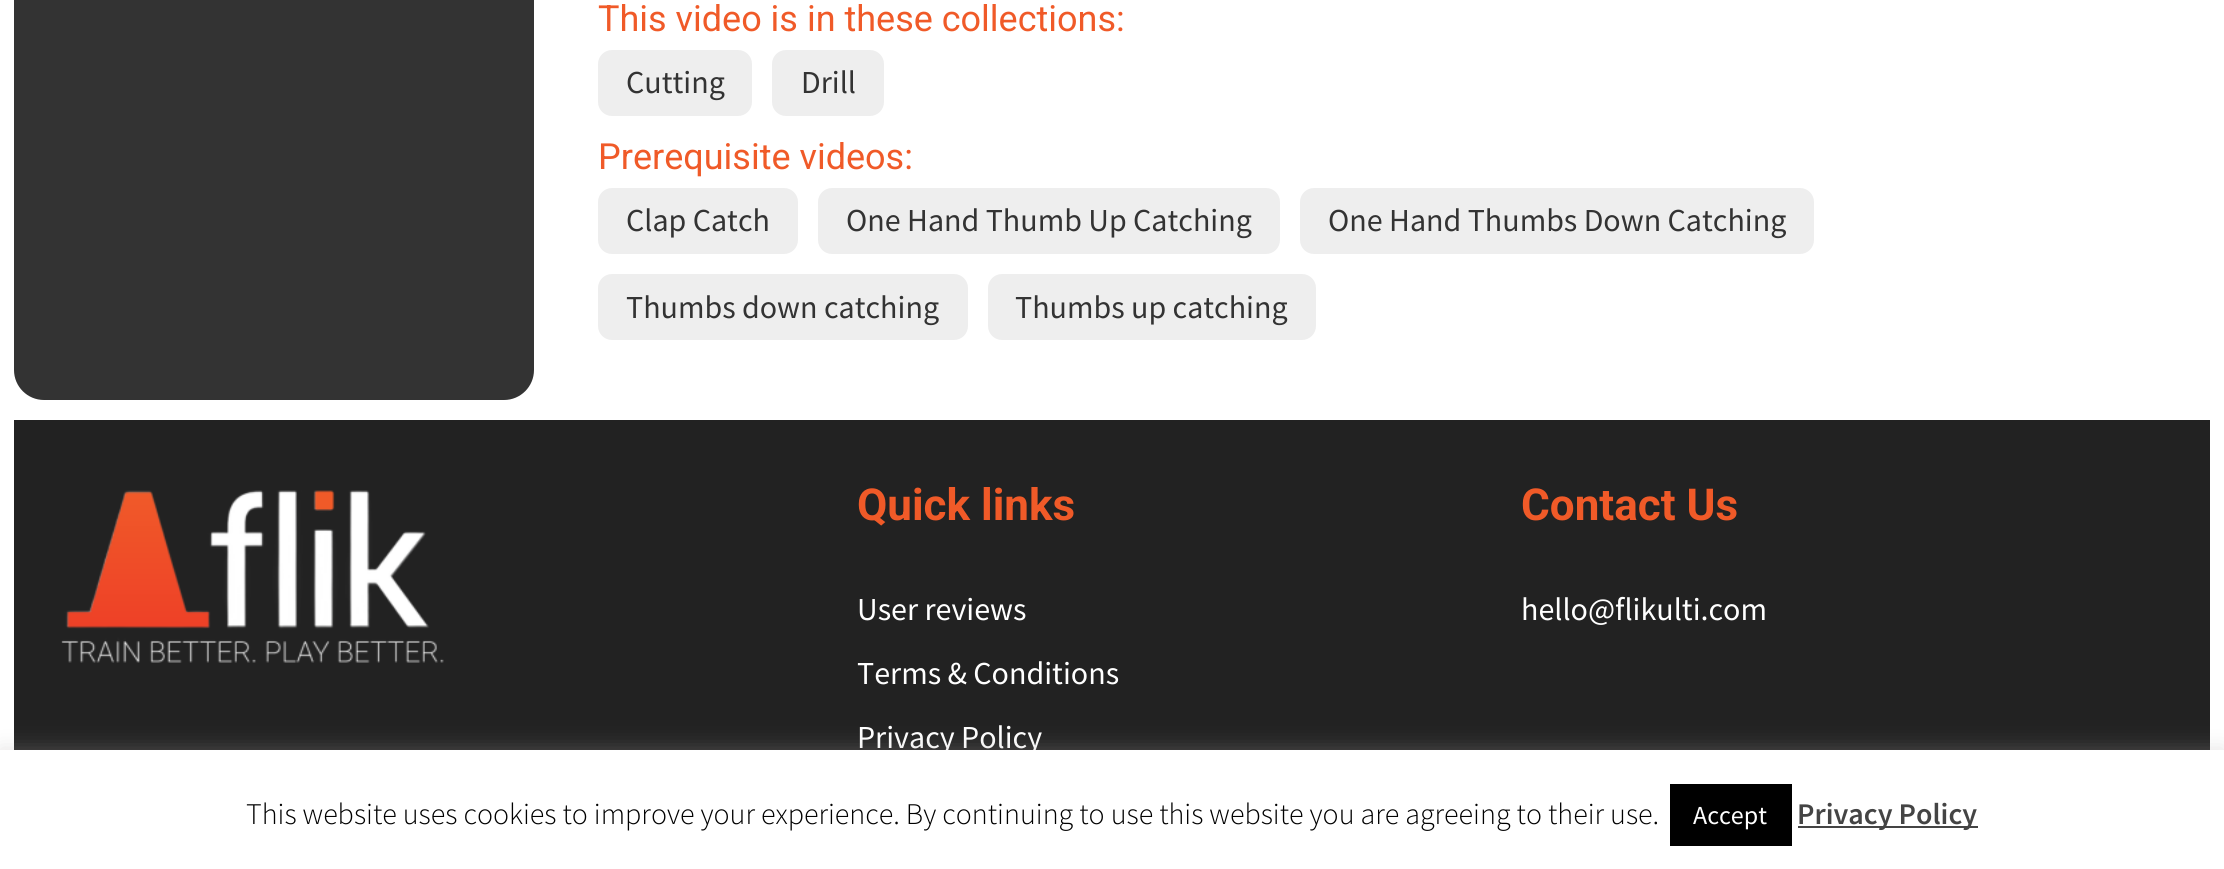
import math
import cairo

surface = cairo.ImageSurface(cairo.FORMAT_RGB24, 2224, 869)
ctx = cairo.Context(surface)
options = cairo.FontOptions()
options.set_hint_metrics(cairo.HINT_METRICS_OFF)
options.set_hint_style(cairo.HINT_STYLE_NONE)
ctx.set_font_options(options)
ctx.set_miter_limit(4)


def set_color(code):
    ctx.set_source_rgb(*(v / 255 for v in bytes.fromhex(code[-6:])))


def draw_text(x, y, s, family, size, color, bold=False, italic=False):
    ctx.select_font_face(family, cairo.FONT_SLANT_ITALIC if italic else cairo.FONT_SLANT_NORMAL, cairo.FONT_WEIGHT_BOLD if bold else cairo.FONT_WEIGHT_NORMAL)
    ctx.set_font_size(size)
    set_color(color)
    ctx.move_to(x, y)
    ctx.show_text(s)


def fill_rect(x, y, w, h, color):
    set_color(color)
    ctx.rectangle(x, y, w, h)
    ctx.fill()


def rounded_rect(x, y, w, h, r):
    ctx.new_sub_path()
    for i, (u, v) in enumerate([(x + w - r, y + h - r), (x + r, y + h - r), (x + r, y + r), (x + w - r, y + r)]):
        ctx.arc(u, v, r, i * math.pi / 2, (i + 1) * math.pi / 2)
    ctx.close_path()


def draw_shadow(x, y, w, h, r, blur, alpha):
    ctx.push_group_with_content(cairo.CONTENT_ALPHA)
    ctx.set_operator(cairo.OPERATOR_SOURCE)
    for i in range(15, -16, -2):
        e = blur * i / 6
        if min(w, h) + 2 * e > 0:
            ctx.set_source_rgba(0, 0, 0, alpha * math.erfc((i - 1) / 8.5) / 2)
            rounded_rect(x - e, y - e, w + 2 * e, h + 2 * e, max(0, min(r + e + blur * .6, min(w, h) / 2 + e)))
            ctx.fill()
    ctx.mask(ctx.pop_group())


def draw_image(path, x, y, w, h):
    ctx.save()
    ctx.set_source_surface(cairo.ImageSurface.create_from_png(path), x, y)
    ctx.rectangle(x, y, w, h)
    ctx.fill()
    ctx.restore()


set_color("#ffffff")
ctx.paint()
set_color("#333333")
rounded_rect(14, -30, 520, 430, 30)
ctx.fill()
draw_text(598, 31, "This video is in these collections:", "Roboto", 36, "#f05a28")
set_color("#eeeeee")
rounded_rect(598, 50, 154, 66, 14)
ctx.fill()
draw_text(626, 93, "Cutting", "Source Sans Pro", 32, "#333333")
set_color("#eeeeee")
rounded_rect(772, 50, 112, 66, 14)
ctx.fill()
draw_text(801, 93, "Drill", "Source Sans Pro", 32, "#333333")
draw_text(598, 169, "Prerequisite videos:", "Roboto", 36, "#f05a28")
set_color("#eeeeee")
rounded_rect(598, 188, 200, 66, 14)
ctx.fill()
draw_text(626, 231, "Clap Catch", "Source Sans Pro", 32, "#333333")
set_color("#eeeeee")
rounded_rect(818, 188, 462, 66, 14)
ctx.fill()
draw_text(846, 231, "One Hand Thumb Up Catching", "Source Sans Pro", 32, "#333333")
set_color("#eeeeee")
rounded_rect(1300, 188, 514, 66, 14)
ctx.fill()
draw_text(1328, 231, "One Hand Thumbs Down Catching", "Source Sans Pro", 32, "#333333")
set_color("#eeeeee")
rounded_rect(598, 274, 370, 66, 14)
ctx.fill()
draw_text(626, 318, "Thumbs down catching", "Source Sans Pro", 32, "#333333")
set_color("#eeeeee")
rounded_rect(988, 274, 328, 66, 14)
ctx.fill()
draw_text(1015, 318, "Thumbs up catching", "Source Sans Pro", 32, "#333333")
fill_rect(14, 420, 2196, 330, "#222222")
draw_image("assets/img1.png", 61, 490, 383, 173)
draw_text(857, 520, "Quick links", "Roboto", 44, "#f05a28", bold=True)
draw_text(857, 620, "User reviews", "Source Sans Pro", 32, "#ffffff")
draw_text(857, 684, "Terms & Conditions", "Source Sans Pro", 32, "#ffffff")
draw_text(857, 748, "Privacy Policy", "Source Sans Pro", 32, "#ffffff")
draw_text(1521, 520, "Contact Us", "Roboto", 44, "#f05a28", bold=True)
draw_text(1521, 620, "hello@flikulti.com", "Source Sans Pro", 32, "#ffffff")
set_color("#acabab")
draw_shadow(0, 748, 2224, 120, 0, 10, 0.3)
fill_rect(0, 750, 2224, 119, "#ffffff")
draw_text(246, 824, "This website uses cookies to improve your experience. By continuing to use this website you are agreeing to their use.", "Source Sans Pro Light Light", 30, "#000000")
fill_rect(1670, 784, 122, 62, "#000000")
draw_text(1693, 824, "Accept", "Source Sans Pro", 26, "#ffffff")
fill_rect(1798, 826, 180, 2, "#444444")
draw_text(1797, 824, "Privacy Policy", "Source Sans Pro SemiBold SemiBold", 30, "#444444")
surface.write_to_png("output.png")
